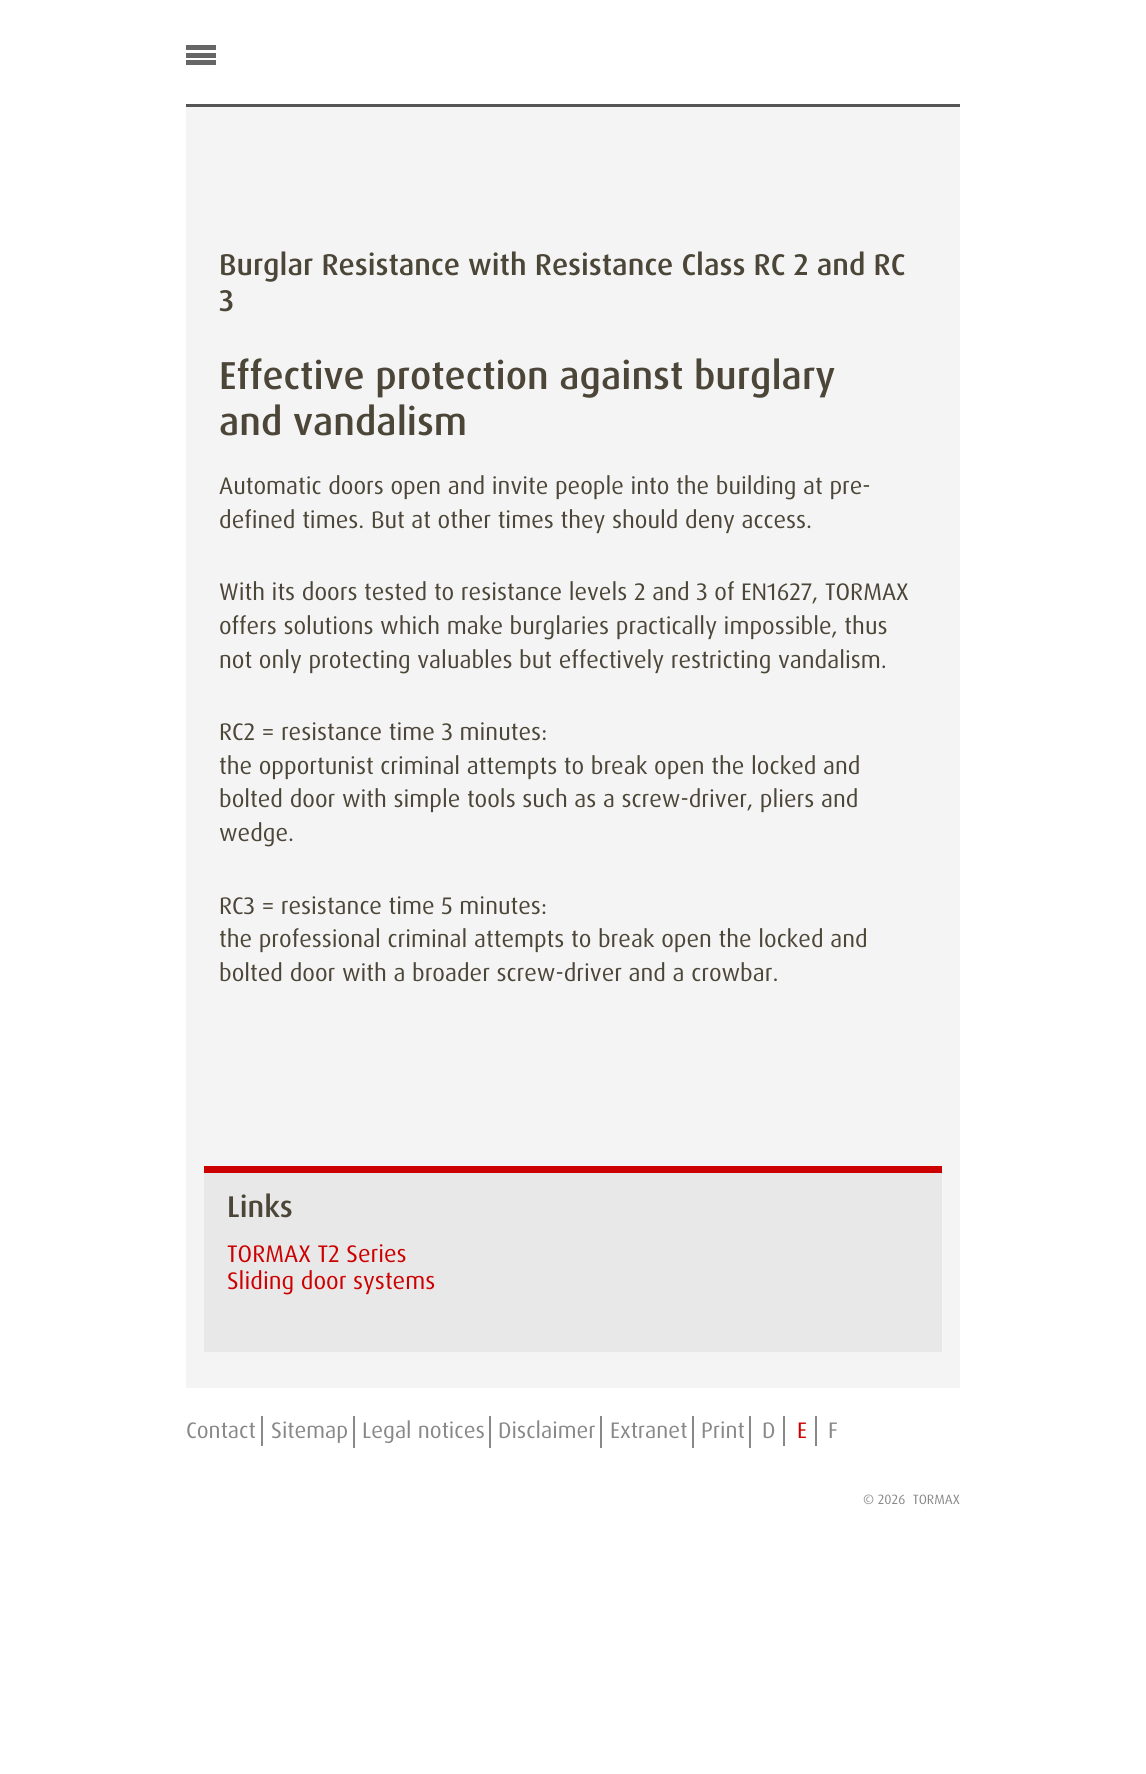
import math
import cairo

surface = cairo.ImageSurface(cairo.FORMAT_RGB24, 1146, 1774)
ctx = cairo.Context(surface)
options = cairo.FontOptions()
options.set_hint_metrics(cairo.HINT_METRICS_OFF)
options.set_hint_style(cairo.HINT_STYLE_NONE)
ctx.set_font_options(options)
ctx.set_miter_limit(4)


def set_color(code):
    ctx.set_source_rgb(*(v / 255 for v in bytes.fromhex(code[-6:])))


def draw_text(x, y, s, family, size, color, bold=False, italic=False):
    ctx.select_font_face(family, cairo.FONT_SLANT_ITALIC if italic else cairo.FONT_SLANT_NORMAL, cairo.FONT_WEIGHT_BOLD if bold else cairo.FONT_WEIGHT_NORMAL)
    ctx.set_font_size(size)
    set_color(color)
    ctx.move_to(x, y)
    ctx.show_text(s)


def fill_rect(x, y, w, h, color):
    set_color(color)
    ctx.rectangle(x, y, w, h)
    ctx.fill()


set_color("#ffffff")
ctx.paint()
fill_rect(186, 45, 30, 5, "#666666")
fill_rect(186, 53, 30, 5, "#666666")
fill_rect(186, 60, 30, 5, "#666666")
fill_rect(186, 107, 774, 1281, "#f4f4f4")
fill_rect(186, 104, 774, 3, "#565555")
draw_text(219, 275, "Burglar Resistance with Resistance Class RC 2 and RC", "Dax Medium", 30, "#4c4638")
draw_text(219, 311, "3", "Dax Medium", 30, "#4c4638")
draw_text(219, 389, "Effective protection against burglary", "Dax Medium", 39, "#4c4638")
draw_text(219, 435, "and vandalism", "Dax Medium", 39, "#4c4638")
draw_text(219, 494, "Automatic doors open and invite people into the building at pre-", "Dax", 24, "#4c4638")
draw_text(219, 528, "defined times. But at other times they should deny access.", "Dax", 24, "#4c4638")
draw_text(219, 600, "With its doors tested to resistance levels 2 and 3 of EN1627, TORMAX", "Dax", 24, "#4c4638")
draw_text(219, 634, "offers solutions which make burglaries practically impossible, thus", "Dax", 24, "#4c4638")
draw_text(219, 668, "not only protecting valuables but effectively restricting vandalism.", "Dax", 24, "#4c4638")
draw_text(219, 740, "RC2 = resistance time 3 minutes:", "Dax", 24, "#4c4638")
draw_text(219, 774, "the opportunist criminal attempts to break open the locked and", "Dax", 24, "#4c4638")
draw_text(219, 807, "bolted door with simple tools such as a screw-driver, pliers and", "Dax", 24, "#4c4638")
draw_text(219, 841, "wedge.", "Dax", 24, "#4c4638")
draw_text(219, 914, "RC3 = resistance time 5 minutes:", "Dax", 24, "#4c4638")
draw_text(219, 947, "the professional criminal attempts to break open the locked and", "Dax", 24, "#4c4638")
draw_text(219, 981, "bolted door with a broader screw-driver and a crowbar.", "Dax", 24, "#4c4638")
fill_rect(204, 1173, 738, 179, "#e8e8e8")
fill_rect(204, 1166, 738, 7, "#cc0000")
draw_text(227, 1217, "Links", "Dax Medium", 30, "#4c4638")
draw_text(227, 1262, "TORMAX T2 Series", "Dax", 24, "#cc0000")
draw_text(227, 1289, "Sliding door systems", "Dax", 24, "#cc0000")
draw_text(186, 1438, "Contact", "Dax", 22.5, "#888888")
fill_rect(261, 1416, 2, 30, "#888888")
draw_text(271, 1438, "Sitemap", "Dax", 22.5, "#888888")
fill_rect(353, 1416, 2, 32, "#888888")
draw_text(362, 1438, "Legal notices", "Dax", 22.5, "#888888")
fill_rect(489, 1416, 2, 32, "#888888")
draw_text(498, 1438, "Disclaimer", "Dax", 22.5, "#888888")
fill_rect(600, 1416, 2, 32, "#888888")
draw_text(610, 1438, "Extranet", "Dax", 22.5, "#888888")
fill_rect(692, 1416, 2, 32, "#888888")
draw_text(701, 1438, "Print", "Dax", 22.5, "#888888")
fill_rect(749, 1416, 2, 32, "#888888")
draw_text(762, 1438, "D", "Dax", 22.5, "#888888")
fill_rect(783, 1416, 2, 30, "#888888")
draw_text(797, 1438, "E", "Dax", 22.5, "#cc0000")
fill_rect(815, 1416, 2, 30, "#888888")
draw_text(828, 1438, "F", "Dax", 22.5, "#888888")
draw_text(863, 1504, "© 2026  TORMAX", "Dax", 13.5, "#888888")
surface.write_to_png("output.png")
